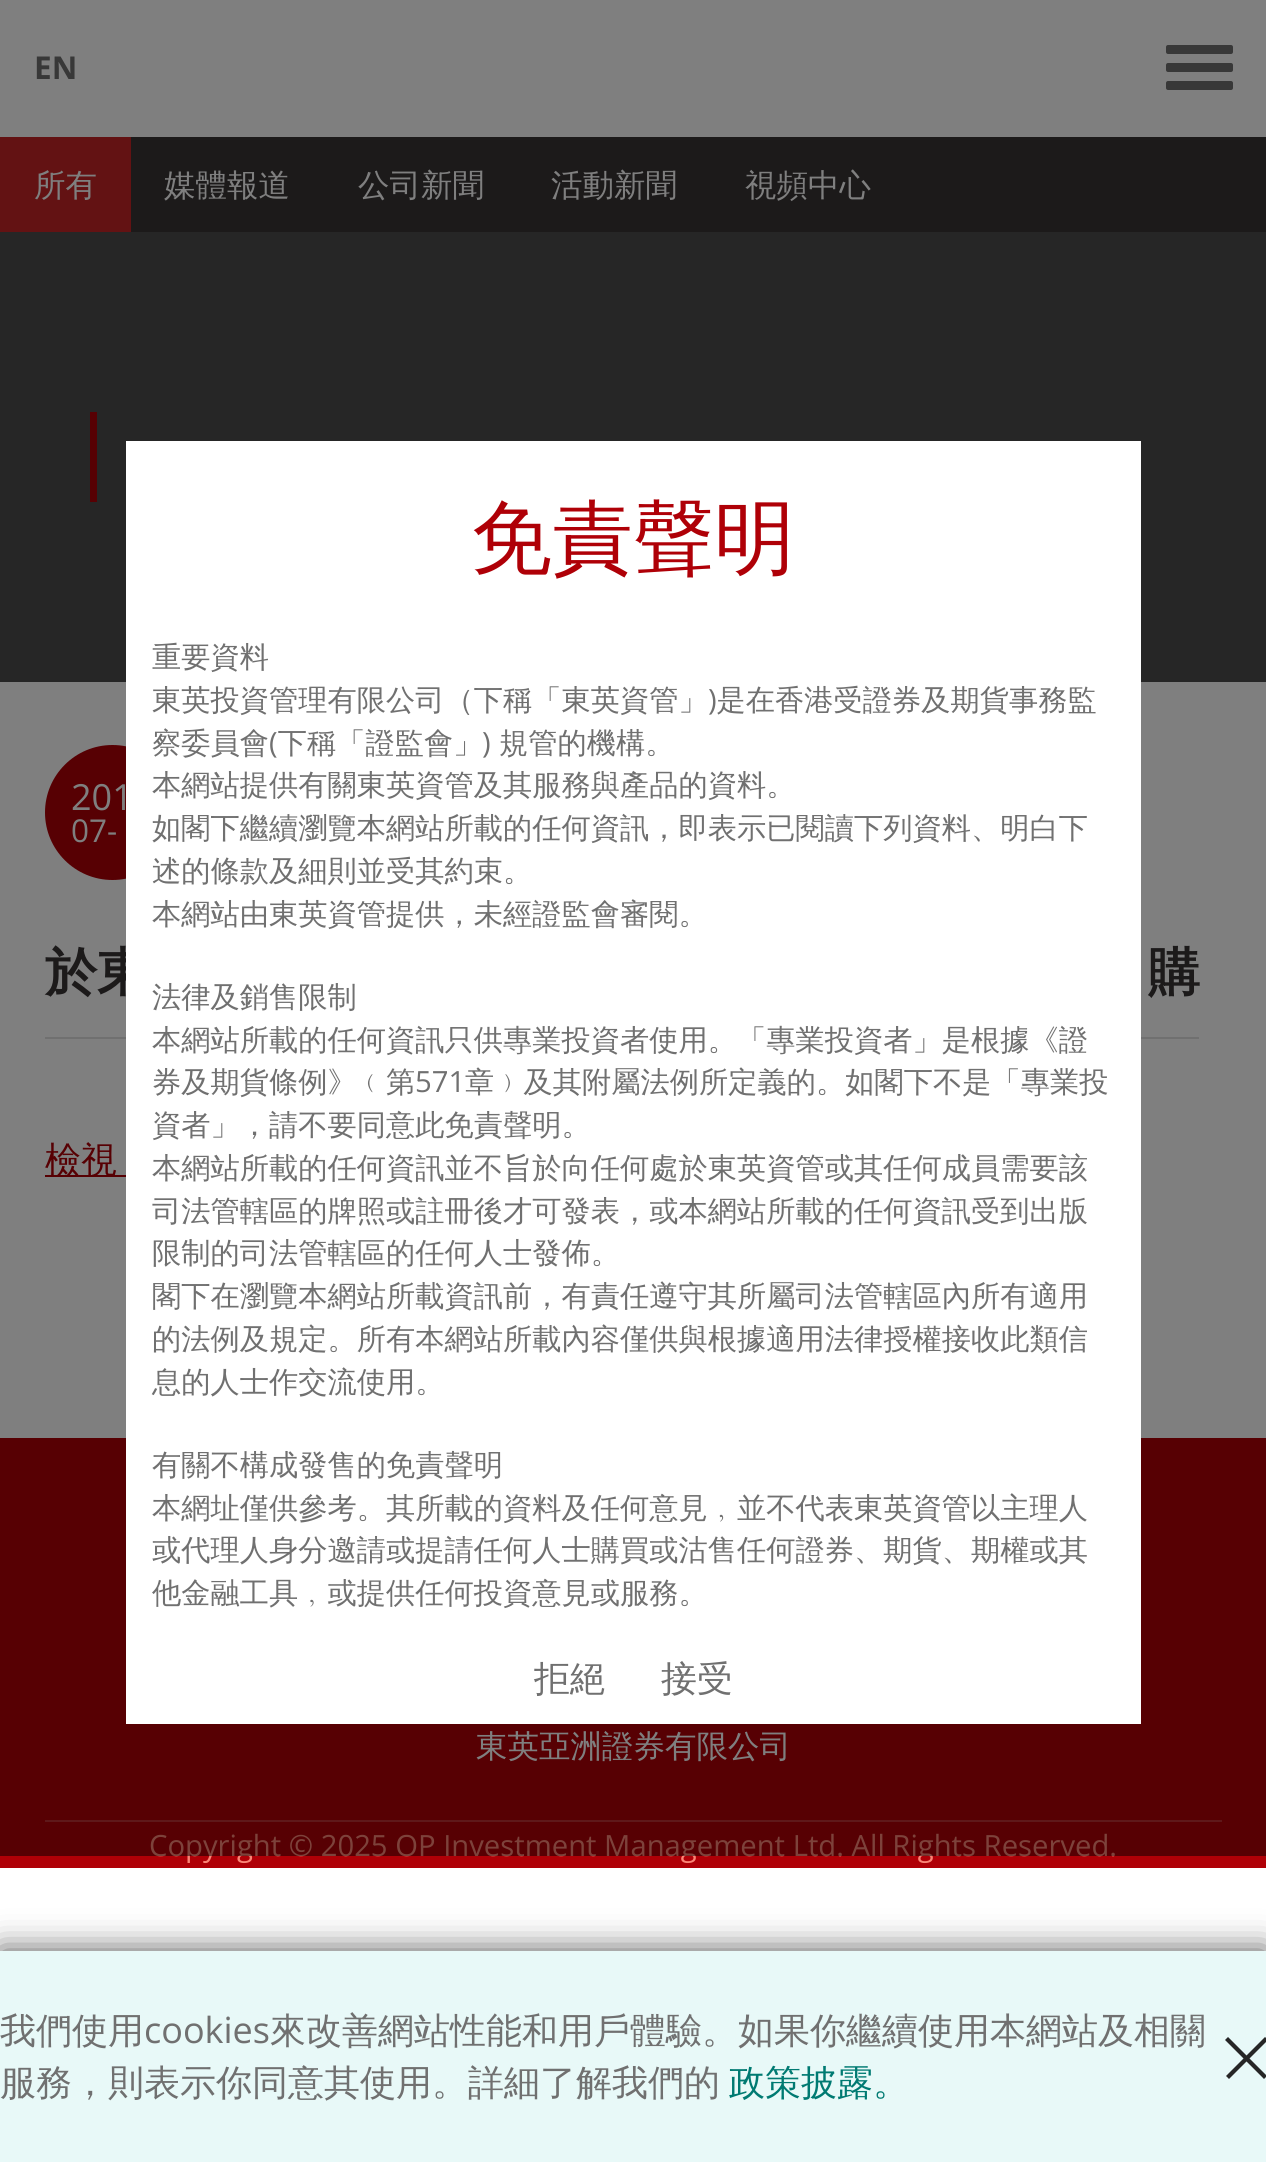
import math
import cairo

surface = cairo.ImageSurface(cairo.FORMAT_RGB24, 1266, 2162)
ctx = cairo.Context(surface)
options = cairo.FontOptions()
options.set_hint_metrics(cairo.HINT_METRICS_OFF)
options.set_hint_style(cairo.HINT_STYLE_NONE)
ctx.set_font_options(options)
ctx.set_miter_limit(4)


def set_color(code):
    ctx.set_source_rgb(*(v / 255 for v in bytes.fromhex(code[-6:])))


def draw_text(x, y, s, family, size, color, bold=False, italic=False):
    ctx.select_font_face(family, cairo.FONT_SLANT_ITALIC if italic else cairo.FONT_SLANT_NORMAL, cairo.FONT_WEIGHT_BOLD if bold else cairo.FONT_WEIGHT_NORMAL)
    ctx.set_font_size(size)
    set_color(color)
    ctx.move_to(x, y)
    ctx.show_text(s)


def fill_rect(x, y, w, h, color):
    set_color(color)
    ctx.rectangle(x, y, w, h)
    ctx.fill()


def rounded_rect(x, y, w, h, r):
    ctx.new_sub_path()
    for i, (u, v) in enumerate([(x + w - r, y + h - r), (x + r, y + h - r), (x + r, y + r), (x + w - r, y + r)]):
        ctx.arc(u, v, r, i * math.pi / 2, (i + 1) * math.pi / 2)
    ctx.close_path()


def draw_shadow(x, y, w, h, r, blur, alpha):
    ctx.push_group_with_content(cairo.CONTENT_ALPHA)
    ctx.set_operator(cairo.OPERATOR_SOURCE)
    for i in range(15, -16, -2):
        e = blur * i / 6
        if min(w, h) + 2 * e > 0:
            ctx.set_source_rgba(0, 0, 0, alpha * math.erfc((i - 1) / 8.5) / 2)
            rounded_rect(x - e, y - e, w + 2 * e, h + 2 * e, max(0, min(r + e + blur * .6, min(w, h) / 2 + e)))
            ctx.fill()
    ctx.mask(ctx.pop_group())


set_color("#ffffff")
ctx.paint()
draw_text(34, 79, "EN", "Open Sans", 31.5, "#707070", bold=True)
rounded_rect(1166, 45, 67, 9, 2)
ctx.fill()
rounded_rect(1166, 63, 67, 9, 2)
ctx.fill()
rounded_rect(1166, 81, 67, 9, 2)
ctx.fill()
fill_rect(131, 137, 1135, 95, "#383435")
fill_rect(0, 137, 131, 95, "#c72427")
draw_text(34, 196, "所有", "WenQuanYi Zen Hei Medium", 31.5, "#ffffff")
draw_text(164, 196, "媒體報道", "WenQuanYi Zen Hei Medium", 31.5, "#ffffff")
draw_text(358, 196, "公司新聞", "WenQuanYi Zen Hei Medium", 31.5, "#ffffff")
draw_text(551, 196, "活動新聞", "WenQuanYi Zen Hei Medium", 31.5, "#ffffff")
draw_text(745, 196, "視頻中心", "WenQuanYi Zen Hei Medium", 31.5, "#ffffff")
fill_rect(0, 232, 1266, 450, "#4d4d4d")
fill_rect(90, 412, 7, 90, "#af0007")
ctx.new_path()
ctx.arc(112.5, 812.5, 67.5, 0, 2 * math.pi)
ctx.fill()
draw_text(71, 810, "201", "Open Sans", 36, "#ffffff")
draw_text(71, 842, "07-", "Open Sans", 31.5, "#ffffff")
draw_text(45, 990, "於東", "WenQuanYi Zen Hei", 52, "#383435", bold=True)
draw_text(1148, 990, "購", "WenQuanYi Zen Hei", 52, "#383435", bold=True)
fill_rect(45, 1037, 1154, 2, "#e1e1e1")
fill_rect(45, 1175, 81, 2, "#af0007")
draw_text(45, 1172, "檢視", "WenQuanYi Zen Hei Medium", 36, "#af0007")
fill_rect(0, 1438, 1266, 430, "#af0007")
draw_text(476, 1757, "東英亞洲證券有限公司", "WenQuanYi Zen Hei Medium", 31.5, "#ffffff")
fill_rect(45, 1820, 1177, 2, "#be3034")
draw_text(149, 1856, "Copyright © 2025 OP Investment Management Ltd. All Rights Reserved.", "Open Sans", 29.25, "#fa8576")
ctx.set_source_rgba(0, 0, 0, 0.5)
ctx.rectangle(0, 0, 1266, 1856)
ctx.fill()
set_color("#555555")
draw_shadow(0, 1951, 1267, 211, 0, 17, 1)
fill_rect(0, 1951, 1266, 211, "#e8f9f8")
draw_text(0, 2043, "我們使用", "WenQuanYi Zen Hei Medium", 36, "#707070")
draw_text(144, 2043, "cookies", "Open Sans", 36, "#707070")
draw_text(270, 2043, "來改善網站性能和用戶體驗。如果你繼續使用本網站及相關", "WenQuanYi Zen Hei Medium", 36, "#707070")
draw_text(0, 2095, "服務，則表示你同意其使用。詳細了解我們的", "WenQuanYi Zen Hei Medium", 36, "#707070")
draw_text(729, 2095, "政策披露。", "WenQuanYi Zen Hei Medium", 36, "#007a72")
set_color("#262626")
ctx.new_path()
ctx.move_to(1228, 2037)
ctx.line_to(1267, 2076)
ctx.line_to(1264, 2079)
ctx.line_to(1225, 2040)
ctx.close_path()
ctx.fill()
ctx.new_path()
ctx.move_to(1226, 2076)
ctx.line_to(1265, 2037)
ctx.line_to(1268, 2040)
ctx.line_to(1229, 2079)
ctx.close_path()
ctx.fill()
fill_rect(126, 441, 1015, 1283, "#ffffff")
draw_text(471, 566, "免責聲明", "WenQuanYi Zen Hei Medium", 81, "#af0007")
draw_text(152, 667, "重要資料", "WenQuanYi Zen Hei Medium", 29.25, "#707070")
draw_text(152, 710, "東英投資管理有限公司（下稱「東英資管」 是在香港受證券及期貨事務監", "WenQuanYi Zen Hei Medium", 29.25, "#707070")
draw_text(708, 710, ")", "Open Sans", 29.25, "#707070")
draw_text(152, 753, "察委員會 下稱「證監會」", "WenQuanYi Zen Hei Medium", 29.25, "#707070")
draw_text(499, 753, "規管的機構。", "WenQuanYi Zen Hei Medium", 29.25, "#707070")
draw_text(269, 753, "(", "Open Sans", 29.25, "#707070")
draw_text(482, 753, ")", "Open Sans", 29.25, "#707070")
draw_text(152, 795, "本網站提供有關東英資管及其服務與產品的資料。", "WenQuanYi Zen Hei Medium", 29.25, "#707070")
draw_text(152, 838, "如閣下繼續瀏覽本網站所載的任何資訊，即表示已閱讀下列資料、明白下", "WenQuanYi Zen Hei Medium", 29.25, "#707070")
draw_text(152, 881, "述的條款及細則並受其約束。", "WenQuanYi Zen Hei Medium", 29.25, "#707070")
draw_text(152, 924, "本網站由東英資管提供，未經證監會審閱。", "WenQuanYi Zen Hei Medium", 29.25, "#707070")
draw_text(152, 1007, "法律及銷售限制", "WenQuanYi Zen Hei Medium", 29.25, "#707070")
draw_text(152, 1050, "本網站所載的任何資訊只供專業投資者使用。「專業投資者」是根據《證", "WenQuanYi Zen Hei Medium", 29.25, "#707070")
draw_text(152, 1092, "券及期貨條例》﹙第", "WenQuanYi Zen Hei Medium", 29.25, "#707070")
draw_text(415, 1092, "571", "Open Sans", 29.25, "#707070")
draw_text(465, 1092, "章﹚及其附屬法例所定義的。如閣下不是「專業投", "WenQuanYi Zen Hei Medium", 29.25, "#707070")
draw_text(152, 1135, "資者」，請不要同意此免責聲明。", "WenQuanYi Zen Hei Medium", 29.25, "#707070")
draw_text(152, 1178, "本網站所載的任何資訊並不旨於向任何處於東英資管或其任何成員需要該", "WenQuanYi Zen Hei Medium", 29.25, "#707070")
draw_text(152, 1221, "司法管轄區的牌照或註冊後才可發表，或本網站所載的任何資訊受到出版", "WenQuanYi Zen Hei Medium", 29.25, "#707070")
draw_text(152, 1263, "限制的司法管轄區的任何人士發佈。", "WenQuanYi Zen Hei Medium", 29.25, "#707070")
draw_text(152, 1306, "閣下在瀏覽本網站所載資訊前，有責任遵守其所屬司法管轄區內所有適用", "WenQuanYi Zen Hei Medium", 29.25, "#707070")
draw_text(152, 1349, "的法例及規定。所有本網站所載內容僅供與根據適用法律授權接收此類信", "WenQuanYi Zen Hei Medium", 29.25, "#707070")
draw_text(152, 1392, "息的人士作交流使用。", "WenQuanYi Zen Hei Medium", 29.25, "#707070")
draw_text(152, 1475, "有關不構成發售的免責聲明", "WenQuanYi Zen Hei Medium", 29.25, "#707070")
draw_text(152, 1518, "本網址僅供參考。其所載的資料及任何意見﹐並不代表東英資管以主理人", "WenQuanYi Zen Hei Medium", 29.25, "#707070")
draw_text(152, 1560, "或代理人身分邀請或提請任何人士購買或沽售任何證券、期貨、期權或其", "WenQuanYi Zen Hei Medium", 29.25, "#707070")
draw_text(152, 1603, "他金融工具﹐或提供任何投資意見或服務。", "WenQuanYi Zen Hei Medium", 29.25, "#707070")
draw_text(534, 1691, "拒絕", "WenQuanYi Zen Hei Medium", 36, "#707070")
draw_text(661, 1691, "接受", "WenQuanYi Zen Hei Medium", 36, "#707070")
surface.write_to_png("output.png")
